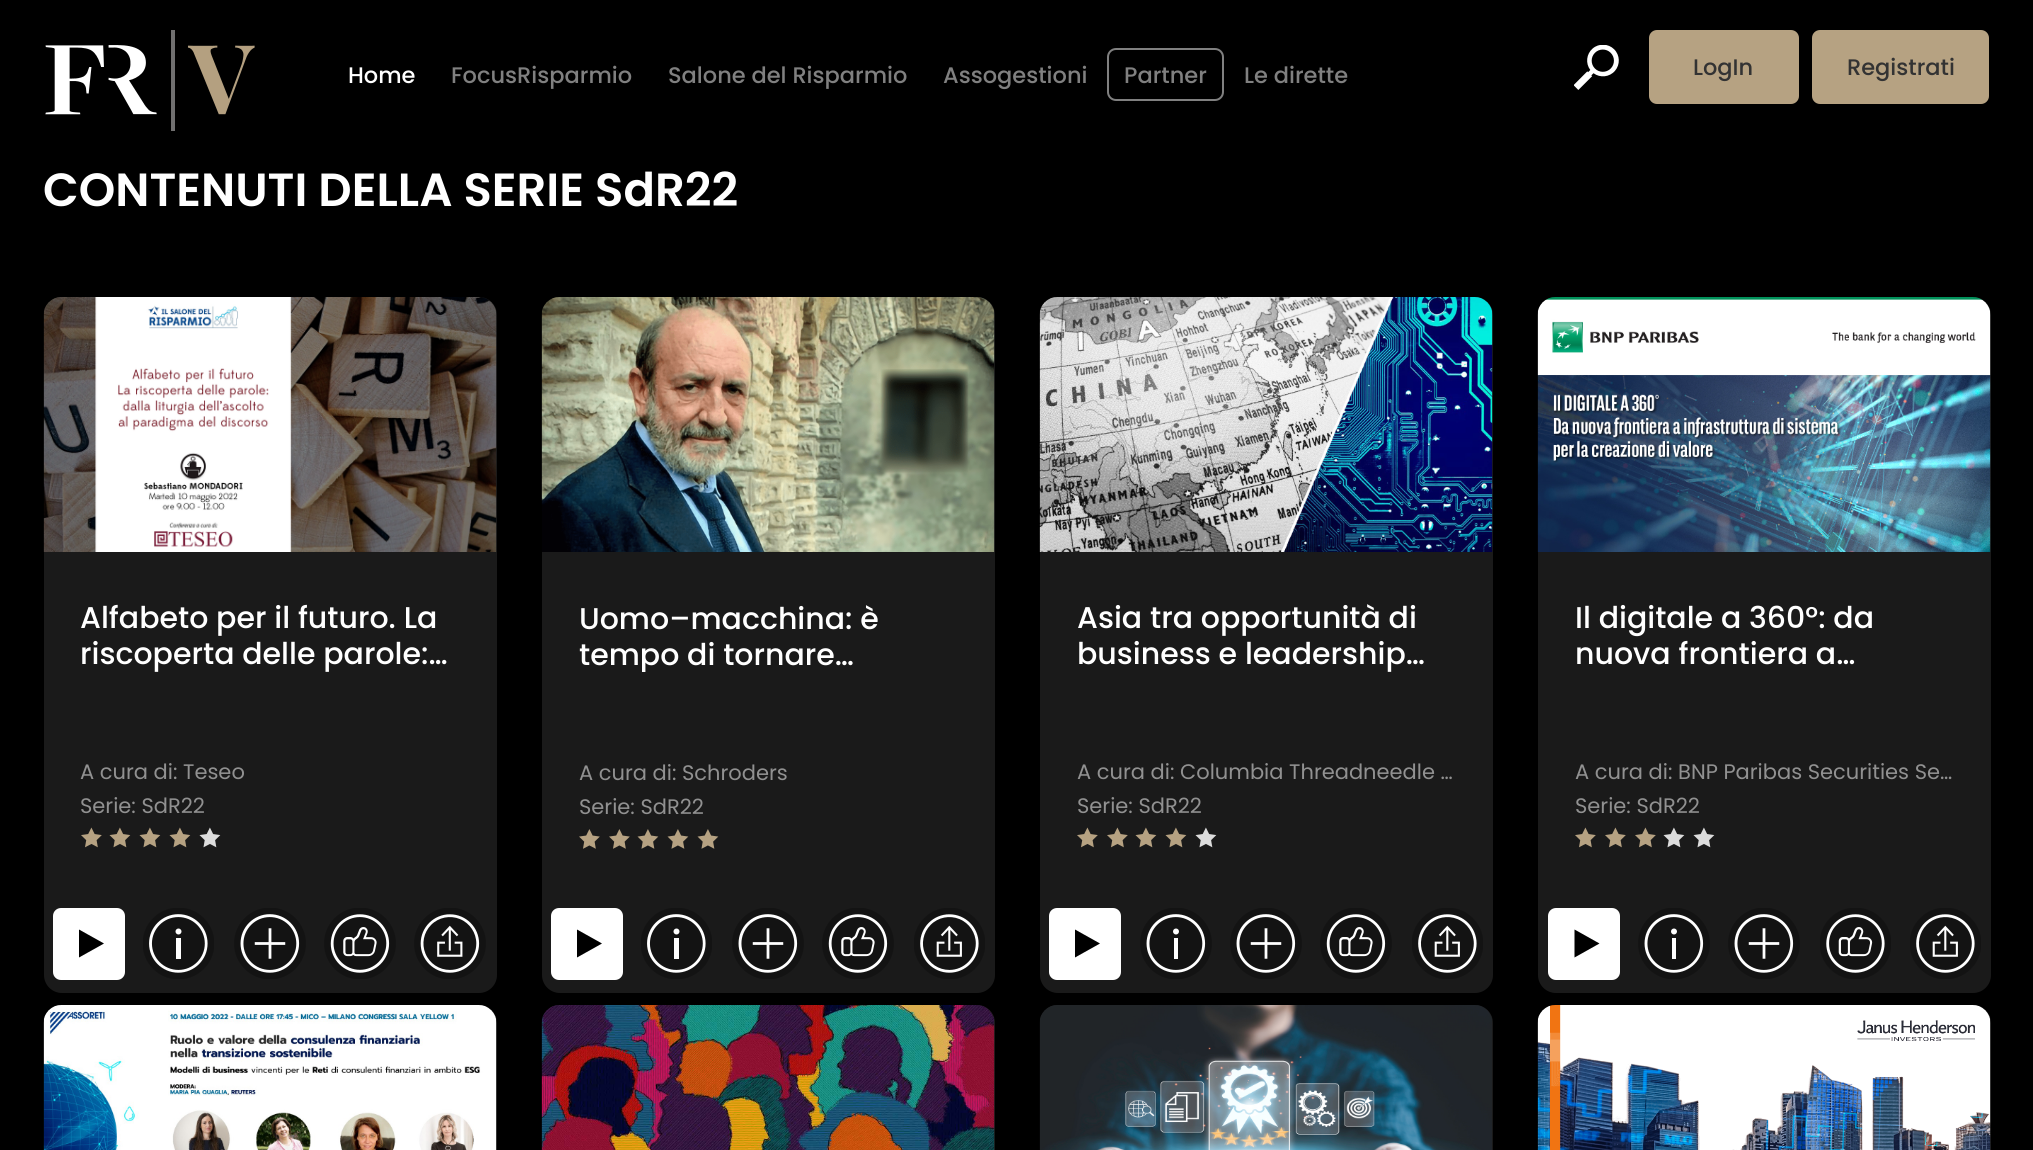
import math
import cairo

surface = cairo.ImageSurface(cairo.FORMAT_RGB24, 2033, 1150)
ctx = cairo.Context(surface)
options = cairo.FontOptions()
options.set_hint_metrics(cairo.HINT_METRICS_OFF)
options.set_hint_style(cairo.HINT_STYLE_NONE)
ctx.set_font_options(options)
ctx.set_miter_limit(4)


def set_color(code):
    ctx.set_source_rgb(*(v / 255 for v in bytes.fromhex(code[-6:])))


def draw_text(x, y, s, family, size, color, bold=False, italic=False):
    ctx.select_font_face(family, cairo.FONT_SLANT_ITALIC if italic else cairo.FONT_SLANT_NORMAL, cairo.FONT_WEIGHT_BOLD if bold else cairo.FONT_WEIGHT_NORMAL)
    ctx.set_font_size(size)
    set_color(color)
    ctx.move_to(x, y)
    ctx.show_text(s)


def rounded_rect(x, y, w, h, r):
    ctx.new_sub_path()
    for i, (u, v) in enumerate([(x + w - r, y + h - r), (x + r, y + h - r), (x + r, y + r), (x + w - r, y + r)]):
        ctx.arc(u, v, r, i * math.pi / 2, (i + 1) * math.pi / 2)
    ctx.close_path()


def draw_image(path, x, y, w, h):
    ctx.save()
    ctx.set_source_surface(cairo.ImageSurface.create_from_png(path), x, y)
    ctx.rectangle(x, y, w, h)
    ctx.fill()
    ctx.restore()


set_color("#000000")
ctx.paint()
draw_image("assets/img1.png", 45, 30, 210, 101)
draw_text(348, 83, "Home", "Poppins Medium", 22.5, "#ffffff")
draw_text(451, 83, "FocusRisparmio", "Poppins Medium", 22.5, "#808080")
draw_text(668, 83, "Salone del Risparmio", "Poppins Medium", 22.5, "#808080")
draw_text(943, 83, "Assogestioni", "Poppins Medium", 22.5, "#808080")
rounded_rect(1108, 49, 115, 51, 8)
ctx.stroke()
draw_text(1124, 83, "Partner", "Poppins Medium", 22.5, "#808080")
draw_text(1244, 83, "Le dirette", "Poppins Medium", 22.5, "#808080")
draw_image("assets/img2.png", 1574, 45, 45, 45)
set_color("#b6a282")
rounded_rect(1649, 30, 150, 74, 8)
ctx.fill()
draw_text(1693, 75, "LogIn", "Poppins Medium", 22.5, "#333333")
set_color("#b6a282")
rounded_rect(1812, 30, 177, 74, 8)
ctx.fill()
draw_text(1847, 75, "Registrati", "Poppins Medium", 22.5, "#333333")
draw_text(43, 206, "CONTENUTI DELLA SERIE SdR22", "Poppins SemiBold", 46.5, "#ffffff")
set_color("#1a1a1a")
rounded_rect(44, 297, 453, 696, 18)
ctx.fill()
draw_image("assets/img3.png", 43, 297, 454, 255)
draw_text(80, 628, "Alfabeto per il futuro. La", "Poppins Medium", 30, "#ffffff")
draw_text(80, 664, "riscoperta delle parole:…", "Poppins Medium", 30, "#ffffff")
draw_text(80, 779, "A cura di: Teseo", "Poppins", 21, "#919191")
draw_text(80, 813, "Serie: SdR22", "Poppins", 21, "#919191")
draw_image("assets/img4.png", 81, 827, 21, 21)
draw_image("assets/img5.png", 109, 827, 22, 21)
draw_image("assets/img5.png", 139, 827, 22, 21)
draw_image("assets/img5.png", 169, 827, 22, 21)
draw_image("assets/img6.png", 199, 827, 22, 21)
set_color("#ffffff")
rounded_rect(53, 908, 72, 72, 8)
ctx.fill()
set_color("#000000")
ctx.new_path()
ctx.move_to(104, 943.5)
ctx.line_to(79, 957.5)
ctx.line_to(79, 929.5)
ctx.close_path()
ctx.fill()
draw_image("assets/img7.png", 143, 908, 71, 71)
draw_image("assets/img8.png", 234, 908, 72, 71)
draw_image("assets/img9.png", 324, 908, 72, 71)
draw_image("assets/img10.png", 414, 908, 72, 71)
set_color("#1a1a1a")
rounded_rect(542, 297, 453, 696, 18)
ctx.fill()
draw_image("assets/img11.png", 541, 297, 454, 255)
draw_text(579, 629, "Uomo–macchina: è", "Poppins Medium", 30, "#ffffff")
ctx.save()
ctx.rectangle(579, 600, 378, 72)
ctx.clip()
draw_text(579, 665, "tempo di tornare…", "Poppins Medium", 30, "#ffffff")
ctx.restore()
draw_text(579, 780, "A cura di: Schroders", "Poppins", 21, "#919191")
draw_text(579, 814, "Serie: SdR22", "Poppins", 21, "#919191")
draw_image("assets/img12.png", 579, 829, 21, 20)
draw_image("assets/img12.png", 609, 829, 21, 20)
draw_image("assets/img13.png", 637, 829, 22, 20)
draw_image("assets/img13.png", 667, 829, 22, 20)
draw_image("assets/img13.png", 697, 829, 22, 20)
set_color("#ffffff")
rounded_rect(551, 908, 72, 72, 8)
ctx.fill()
set_color("#000000")
ctx.new_path()
ctx.move_to(602, 943.5)
ctx.line_to(577, 957.5)
ctx.line_to(577, 929.5)
ctx.close_path()
ctx.fill()
draw_image("assets/img7.png", 641, 908, 71, 71)
draw_image("assets/img8.png", 732, 908, 72, 71)
draw_image("assets/img9.png", 822, 908, 72, 71)
draw_image("assets/img14.png", 914, 908, 71, 71)
set_color("#1a1a1a")
rounded_rect(1040, 297, 453, 696, 18)
ctx.fill()
draw_image("assets/img15.png", 1039, 297, 454, 255)
draw_text(1077, 628, "Asia tra opportunità di", "Poppins Medium", 30, "#ffffff")
draw_text(1077, 664, "business e leadership…", "Poppins Medium", 30, "#ffffff")
draw_text(1077, 779, "A cura di: Columbia Threadneedle …", "Poppins", 21, "#919191")
draw_text(1077, 813, "Serie: SdR22", "Poppins", 21, "#919191")
draw_image("assets/img4.png", 1077, 827, 21, 21)
draw_image("assets/img4.png", 1107, 827, 21, 21)
draw_image("assets/img5.png", 1135, 827, 22, 21)
draw_image("assets/img5.png", 1165, 827, 22, 21)
draw_image("assets/img6.png", 1195, 827, 22, 21)
set_color("#ffffff")
rounded_rect(1049, 908, 72, 72, 8)
ctx.fill()
set_color("#000000")
ctx.new_path()
ctx.move_to(1100, 943.5)
ctx.line_to(1075, 957.5)
ctx.line_to(1075, 929.5)
ctx.close_path()
ctx.fill()
draw_image("assets/img16.png", 1140, 908, 72, 71)
draw_image("assets/img8.png", 1230, 908, 72, 71)
draw_image("assets/img9.png", 1320, 908, 72, 71)
draw_image("assets/img14.png", 1412, 908, 71, 71)
set_color("#1a1a1a")
rounded_rect(1538, 297, 453, 696, 18)
ctx.fill()
draw_image("assets/img17.png", 1537, 297, 454, 255)
draw_text(1575, 628, "Il digitale a 360°: da", "Poppins Medium", 30, "#ffffff")
draw_text(1575, 664, "nuova frontiera a…", "Poppins Medium", 30, "#ffffff")
draw_text(1575, 779, "A cura di: BNP Paribas Securities Se…", "Poppins", 21, "#919191")
draw_text(1575, 813, "Serie: SdR22", "Poppins", 21, "#919191")
draw_image("assets/img4.png", 1575, 827, 21, 21)
draw_image("assets/img4.png", 1605, 827, 21, 21)
draw_image("assets/img4.png", 1635, 827, 21, 21)
draw_image("assets/img6.png", 1663, 827, 22, 21)
draw_image("assets/img6.png", 1693, 827, 22, 21)
set_color("#ffffff")
rounded_rect(1548, 908, 72, 72, 8)
ctx.fill()
set_color("#000000")
ctx.new_path()
ctx.move_to(1599.5, 943.5)
ctx.line_to(1574.5, 957.5)
ctx.line_to(1574.5, 929.5)
ctx.close_path()
ctx.fill()
draw_image("assets/img16.png", 1638, 908, 72, 71)
draw_image("assets/img8.png", 1728, 908, 72, 71)
draw_image("assets/img18.png", 1820, 908, 71, 71)
draw_image("assets/img14.png", 1910, 908, 71, 71)
set_color("#1a1a1a")
rounded_rect(44, 1005, 453, 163, 18)
ctx.fill()
draw_image("assets/img19.png", 43, 1005, 454, 145)
rounded_rect(542, 1005, 453, 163, 18)
ctx.fill()
draw_image("assets/img20.png", 541, 1005, 454, 145)
rounded_rect(1040, 1005, 453, 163, 18)
ctx.fill()
draw_image("assets/img21.png", 1039, 1005, 453, 145)
rounded_rect(1538, 1005, 453, 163, 18)
ctx.fill()
draw_image("assets/img22.png", 1537, 1005, 454, 145)
surface.write_to_png("output.png")
